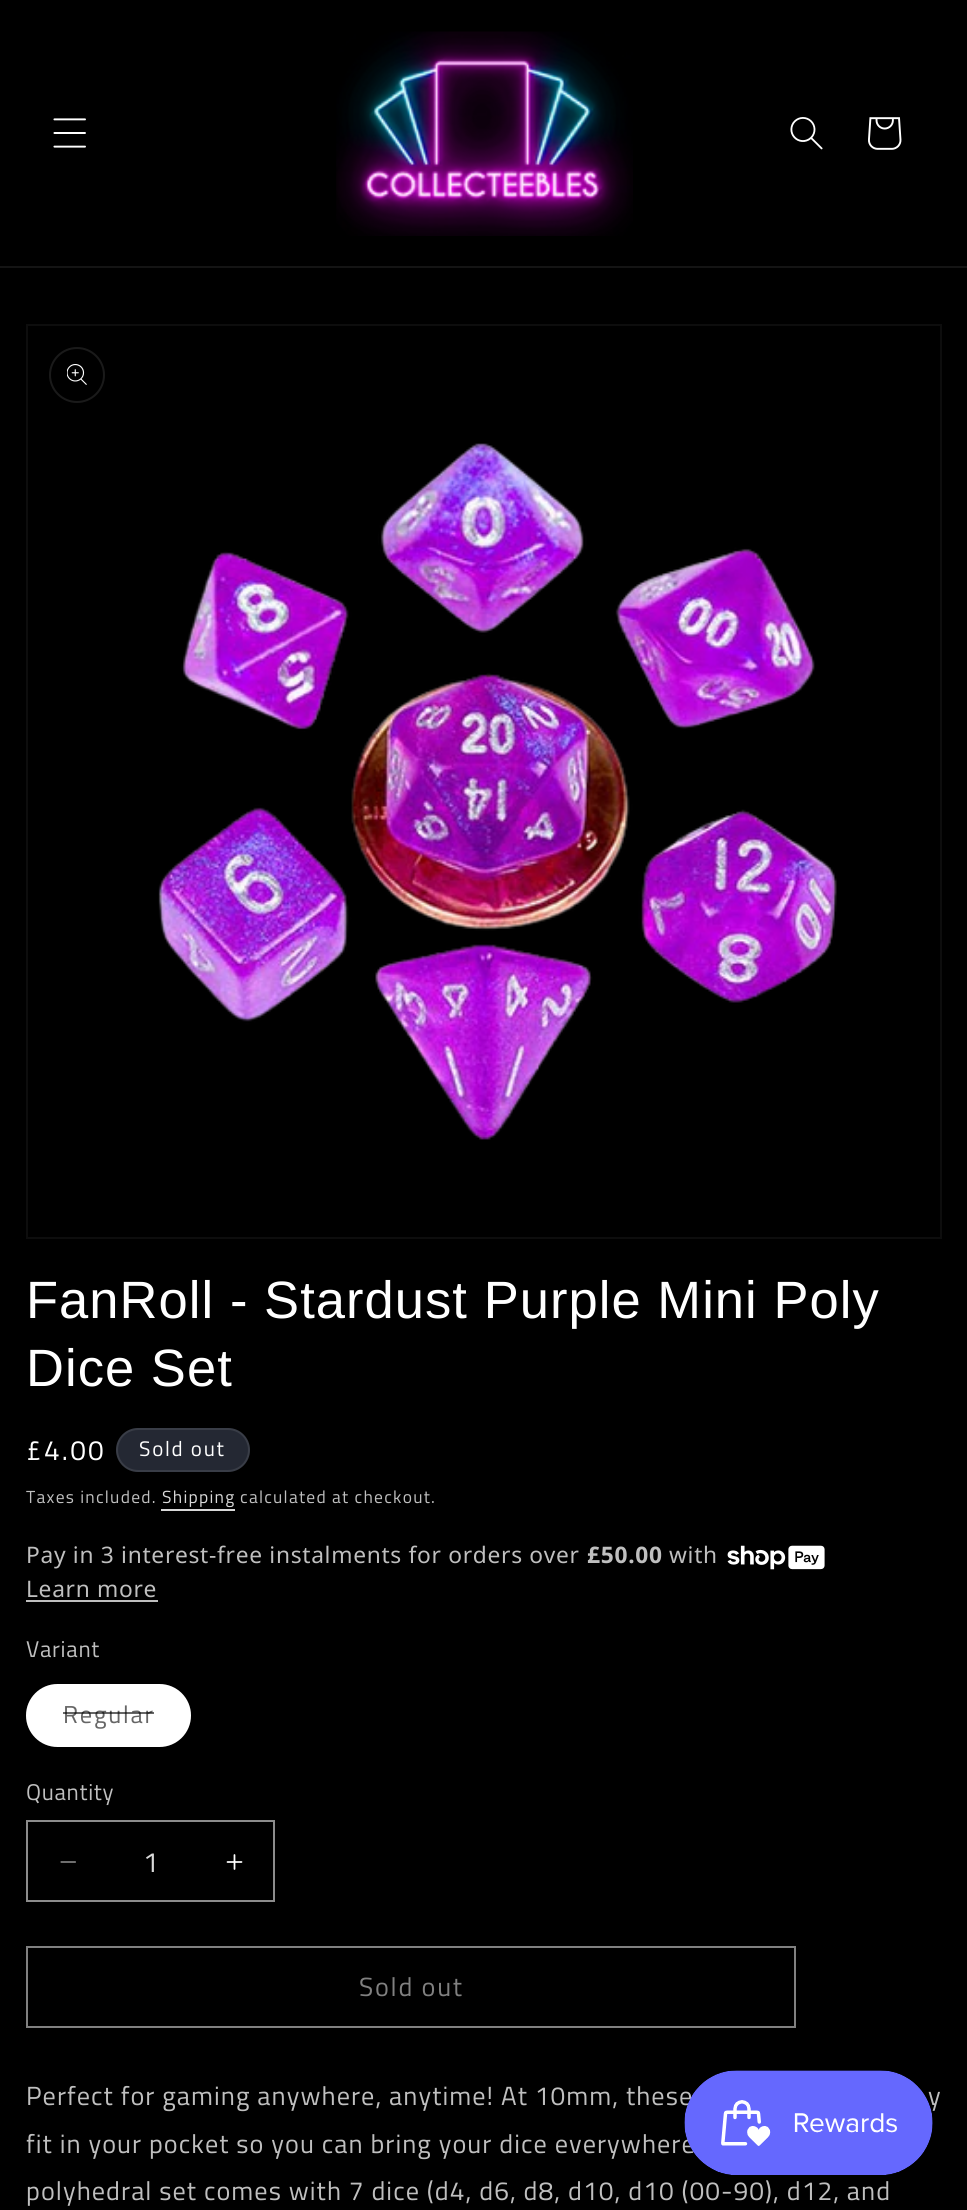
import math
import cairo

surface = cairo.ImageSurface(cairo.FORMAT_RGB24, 967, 2210)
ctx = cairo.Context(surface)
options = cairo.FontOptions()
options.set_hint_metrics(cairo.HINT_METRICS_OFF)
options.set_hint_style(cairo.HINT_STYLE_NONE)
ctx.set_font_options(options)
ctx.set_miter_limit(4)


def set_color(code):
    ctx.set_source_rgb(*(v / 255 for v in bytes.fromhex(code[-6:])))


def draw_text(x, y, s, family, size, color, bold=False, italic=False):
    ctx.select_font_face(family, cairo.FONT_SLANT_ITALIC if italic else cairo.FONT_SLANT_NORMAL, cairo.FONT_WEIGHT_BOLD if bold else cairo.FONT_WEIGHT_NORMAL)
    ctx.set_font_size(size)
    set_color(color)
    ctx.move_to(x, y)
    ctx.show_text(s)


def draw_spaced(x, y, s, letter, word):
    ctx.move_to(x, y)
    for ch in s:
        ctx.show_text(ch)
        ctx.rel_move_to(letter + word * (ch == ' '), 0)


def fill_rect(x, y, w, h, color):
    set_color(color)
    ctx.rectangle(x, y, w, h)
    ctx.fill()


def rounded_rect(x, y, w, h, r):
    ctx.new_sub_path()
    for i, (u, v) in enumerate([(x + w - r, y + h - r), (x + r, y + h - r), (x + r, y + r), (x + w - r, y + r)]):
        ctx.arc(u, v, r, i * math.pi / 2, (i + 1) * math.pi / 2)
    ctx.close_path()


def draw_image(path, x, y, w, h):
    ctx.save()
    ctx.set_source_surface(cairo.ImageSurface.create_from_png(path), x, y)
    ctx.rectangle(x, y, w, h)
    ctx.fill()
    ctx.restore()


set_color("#000000")
ctx.paint()
fill_rect(0, 266, 967, 2, "#141414")
draw_image("assets/img1.png", 53, 118, 33, 30)
draw_image("assets/img2.png", 336, 31, 297, 205)
draw_image("assets/img3.png", 790, 117, 33, 33)
draw_image("assets/img4.png", 868, 117, 34, 33)
ctx.rectangle(27, 325, 914, 913)
set_color("#0d0d0d")
ctx.stroke()
ctx.arc(77, 375, 27, 0, 2 * math.pi)
set_color("#1a1a1a")
ctx.stroke()
draw_image("assets/img5.png", 67, 364, 20, 21)
draw_image("assets/img6.png", 158, 443, 679, 697)
ctx.select_font_face("Arimo")
ctx.set_font_size(52.5)
set_color("#ffffff")
draw_spaced(26, 1318, "FanRoll - Stardust Purple Mini Poly", 1.05, 0)
draw_spaced(26, 1386, "Dice Set", 1.05, 0)
ctx.select_font_face("Titillium Web")
ctx.set_font_size(28)
draw_spaced(26, 1460, "£4.00", 2.25, 0)
set_color("#242833")
rounded_rect(116, 1428, 134, 44, 22)
ctx.fill()
rounded_rect(117, 1429, 132, 42, 21)
ctx.set_source_rgba(1, 1, 1, 0.1)
ctx.stroke()
ctx.set_font_size(21)
set_color("#ffffff")
draw_spaced(139, 1456, "Sold out", 1.75, 0)
ctx.set_font_size(17.5)
set_color("#bfbfbf")
draw_spaced(26, 1503, "Taxes included.", 1.25, 0)
set_color("#d9d9d9")
draw_spaced(162, 1503, "Shipping", 1.25, 0)
fill_rect(161, 1509, 74, 2, "#d9d9d9")
set_color("#bfbfbf")
draw_spaced(240, 1503, "calculated at checkout.", 1.25, 0)
ctx.select_font_face("Noto Sans")
ctx.set_font_size(22.75)
draw_spaced(26, 1563, "Pay in 3 interest-free instalments for orders over", 0.7, 0)
ctx.select_font_face("Noto Sans", cairo.FONT_SLANT_NORMAL, cairo.FONT_WEIGHT_BOLD)
draw_spaced(587, 1563, "£50.00", 0.7, 0)
ctx.select_font_face("Noto Sans")
draw_spaced(669, 1563, "with", 0.7, 0)
draw_image("assets/img7.png", 727, 1545, 98, 25)
draw_spaced(26, 1597, "Learn more", 0.7, 0)
fill_rect(26, 1600, 132, 2, "#bfbfbf")
ctx.select_font_face("Titillium Web")
draw_spaced(26, 1657, "Variant", 0.7, 0)
set_color("#ffffff")
rounded_rect(26, 1684, 165, 63, 31.5)
ctx.fill()
rounded_rect(27, 1685, 163, 61, 30.5)
ctx.set_source_rgba(1, 1, 1, 0.1)
ctx.stroke()
ctx.set_font_size(24.5)
set_color("#666666")
draw_spaced(63, 1723, "Regular", 1.75, 0)
ctx.set_source_rgba(0, 0, 0, 0.6)
ctx.rectangle(63, 1712, 91, 2)
ctx.fill()
ctx.set_font_size(22.75)
set_color("#bfbfbf")
draw_spaced(26, 1800, "Quantity", 0.7, 0)
draw_image("assets/img8.png", 60, 1861, 16, 2)
draw_image("assets/img9.png", 226, 1854, 17, 16)
ctx.rectangle(27, 1821, 247, 80)
set_color("#8c8c8c")
ctx.stroke()
draw_text(143, 1872, "1", "Titillium Web", 28, "#d9d9d9")
ctx.rectangle(27, 1947, 768, 80)
set_color("#808080")
ctx.stroke()
ctx.set_font_size(26.25)
draw_spaced(359, 1996, "Sold out", 1.75, 0)
set_color("#bfbfbf")
draw_spaced(26, 2105, "Perfect for gaming anywhere, anytime! At 10mm, these", 1.05, 0)
draw_spaced(928, 2105, "y", 1.05, 0)
draw_spaced(26, 2153, "fit in your pocket so you can bring your dice everywhere", 1.05, 0)
draw_spaced(26, 2200, "polyhedral set comes with 7 dice (d4, d6, d8, d10, d10 (00-90), d12, and", 1.05, 0)
draw_image("assets/img10.png", 684, 2070, 249, 105)
surface.write_to_png("output.png")
